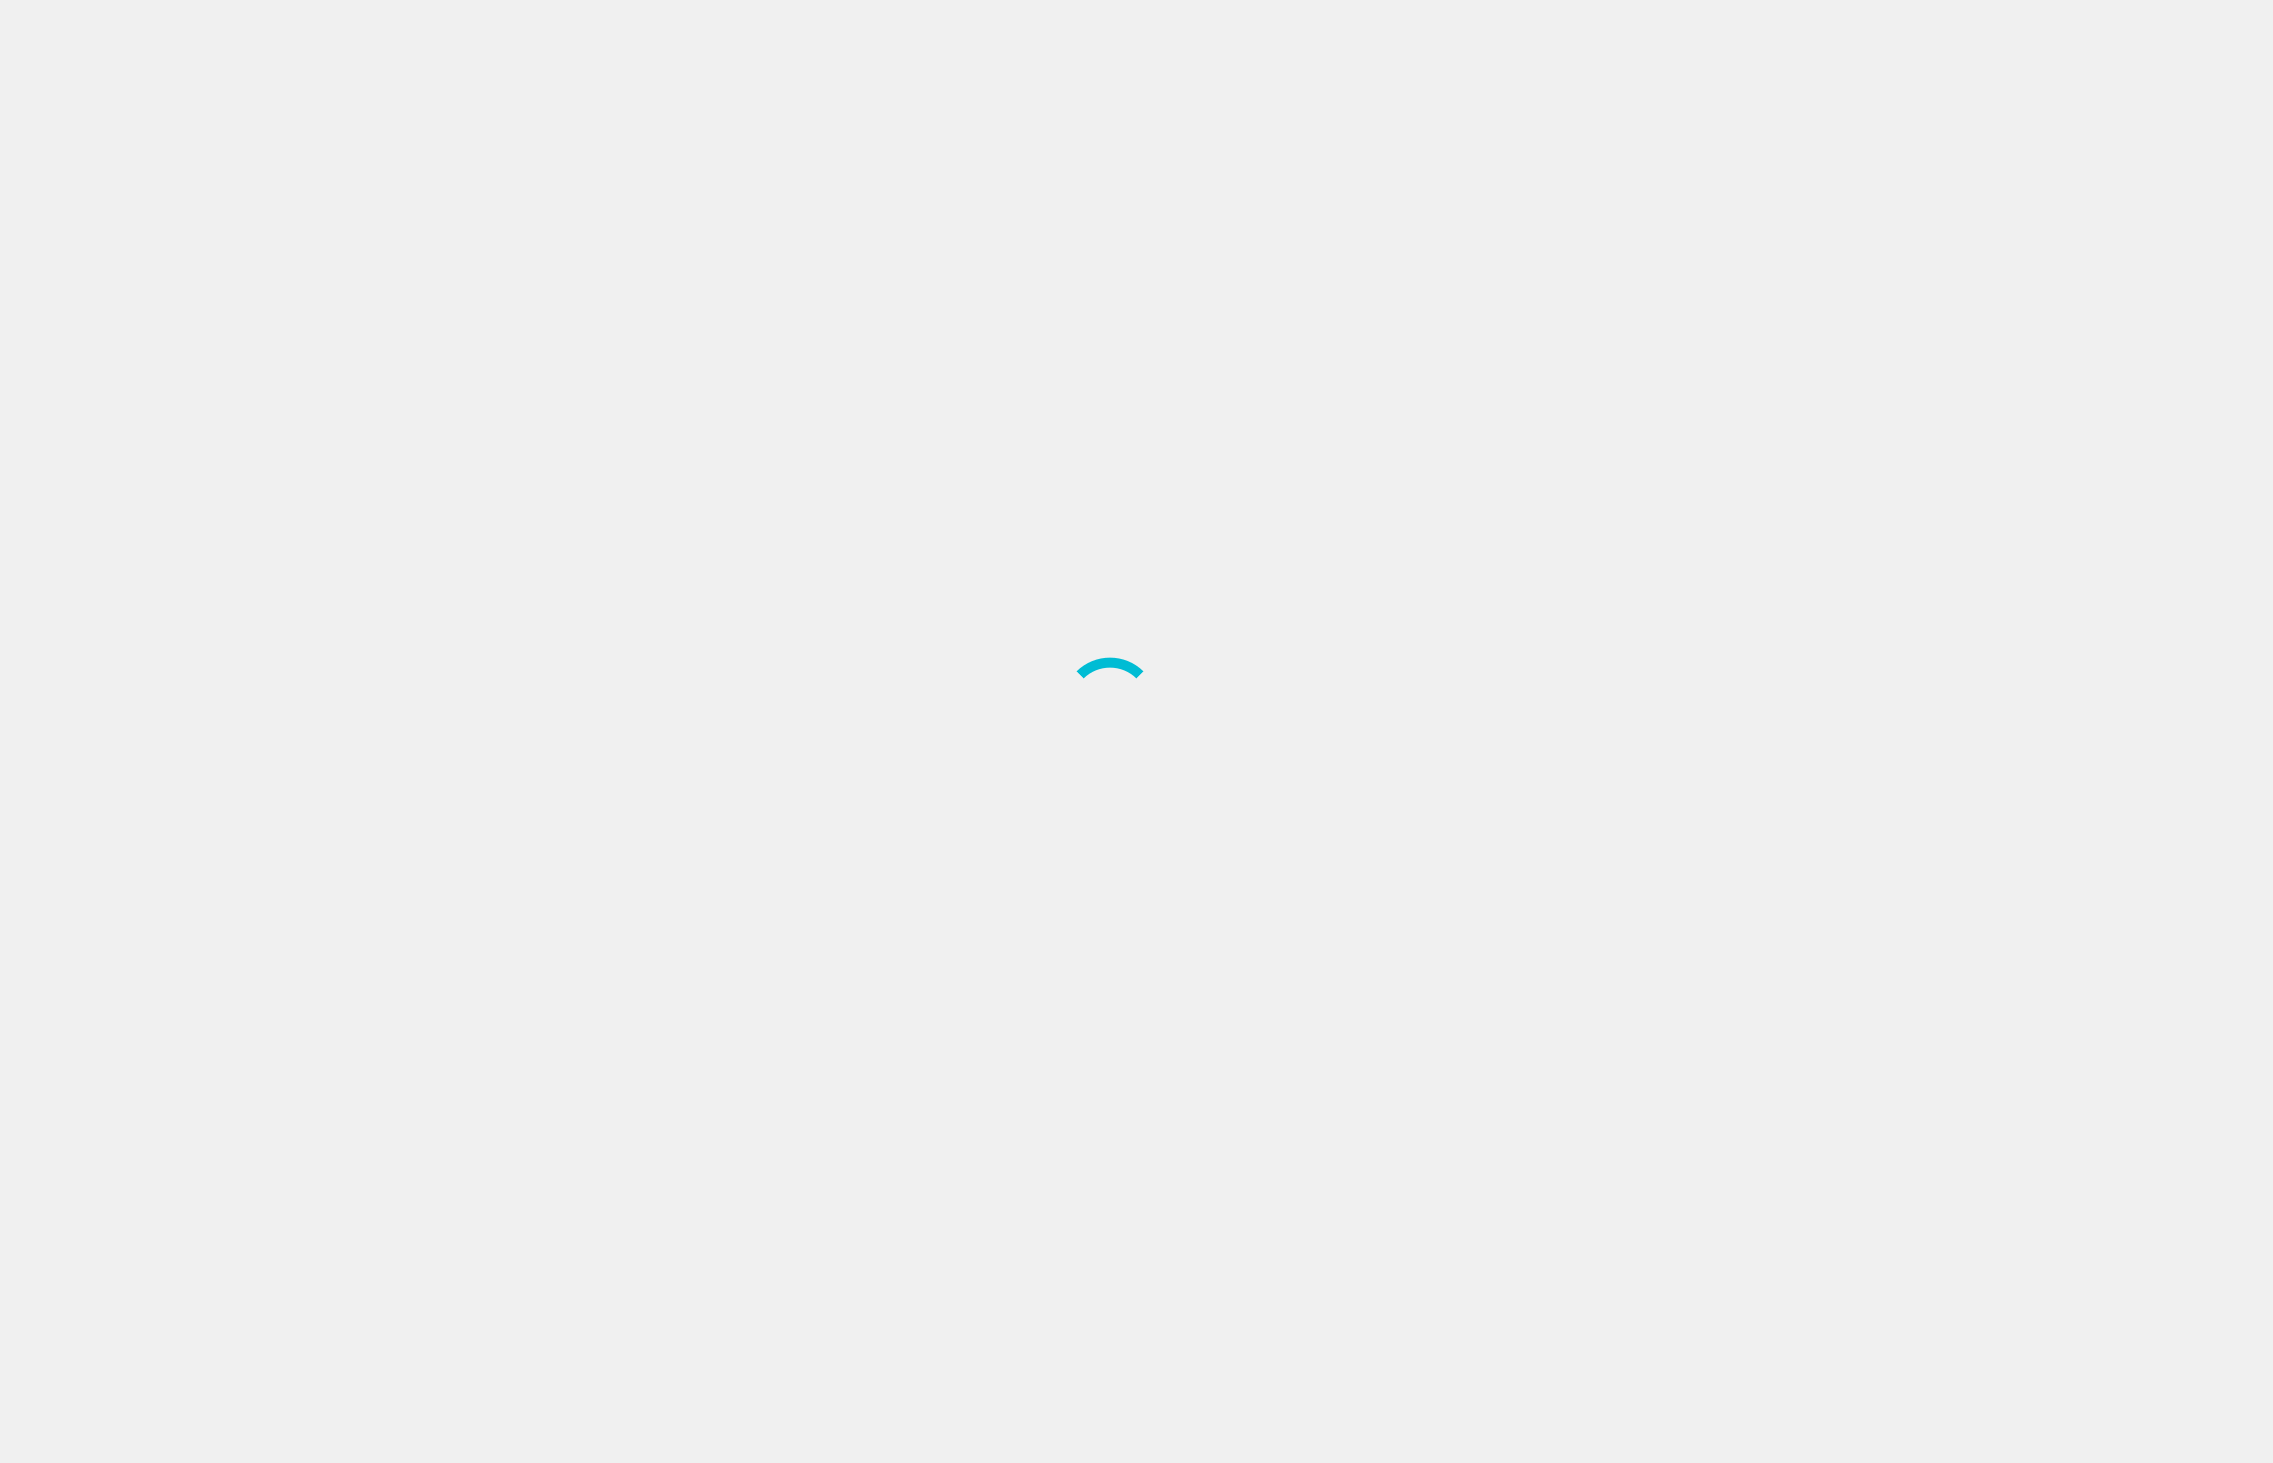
import math
import cairo

surface = cairo.ImageSurface(cairo.FORMAT_RGB24, 2273, 1463)
ctx = cairo.Context(surface)
options = cairo.FontOptions()
options.set_hint_metrics(cairo.HINT_METRICS_OFF)
options.set_hint_style(cairo.HINT_STYLE_NONE)
ctx.set_font_options(options)
ctx.set_miter_limit(4)


def set_color(code):
    ctx.set_source_rgb(*(v / 255 for v in bytes.fromhex(code[-6:])))


set_color("#f0f0f0")
ctx.paint()
ctx.new_path()
ctx.move_to(1080, 675)
ctx.curve_to(1096.5, 658.5, 1123.5, 658.5, 1140, 675)
set_color("#00bcd4")
ctx.set_line_width(10)
ctx.stroke()
ctx.new_path()
ctx.move_to(1140, 675)
ctx.curve_to(1148, 683, 1152.5, 694, 1152.5, 705)
ctx.curve_to(1152.5, 742.5, 1106.5, 761.5, 1080, 735)
ctx.curve_to(1074, 729, 1070, 721.5, 1068.5, 713.5)
ctx.curve_to(1065.5, 699.5, 1070, 685, 1080, 675)
set_color("#f0f0f0")
ctx.stroke()
surface.write_to_png("output.png")
